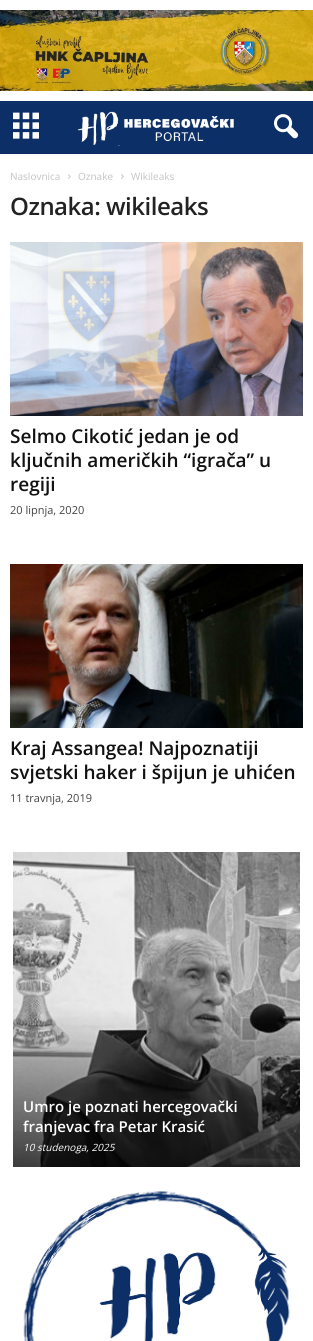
import math
import cairo

surface = cairo.ImageSurface(cairo.FORMAT_RGB24, 313, 1341)
ctx = cairo.Context(surface)
options = cairo.FontOptions()
options.set_hint_metrics(cairo.HINT_METRICS_OFF)
options.set_hint_style(cairo.HINT_STYLE_NONE)
ctx.set_font_options(options)
ctx.set_miter_limit(4)


def set_color(code):
    ctx.set_source_rgb(*(v / 255 for v in bytes.fromhex(code[-6:])))


def draw_text(x, y, s, family, size, color, bold=False, italic=False):
    ctx.select_font_face(family, cairo.FONT_SLANT_ITALIC if italic else cairo.FONT_SLANT_NORMAL, cairo.FONT_WEIGHT_BOLD if bold else cairo.FONT_WEIGHT_NORMAL)
    ctx.set_font_size(size)
    set_color(color)
    ctx.move_to(x, y)
    ctx.show_text(s)


def draw_spaced(x, y, s, letter, word):
    ctx.move_to(x, y)
    for ch in s:
        ctx.show_text(ch)
        ctx.rel_move_to(letter + word * (ch == ' '), 0)


def fill_rect(x, y, w, h, color):
    set_color(color)
    ctx.rectangle(x, y, w, h)
    ctx.fill()


def draw_image(path, x, y, w, h):
    ctx.save()
    ctx.set_source_surface(cairo.ImageSurface.create_from_png(path), x, y)
    ctx.rectangle(x, y, w, h)
    ctx.fill()
    ctx.restore()


set_color("#ffffff")
ctx.paint()
draw_image("assets/img1.png", 0, 10, 313, 81)
fill_rect(0, 101, 313, 53, "#0d2f67")
draw_image("assets/img2.png", 13, 112, 26, 27)
draw_image("assets/img3.png", 77, 111, 157, 35)
draw_image("assets/img4.png", 274, 114, 25, 25)
draw_text(10, 180, "Naslovnica", "Open Sans", 10, "#c3c3c3")
draw_image("assets/img5.png", 68, 174, 3, 5)
draw_text(78, 180, "Oznake", "Open Sans", 10, "#c3c3c3")
draw_image("assets/img5.png", 121, 174, 3, 5)
draw_text(131, 180, "Wikileaks", "Open Sans", 10, "#c3c3c3")
ctx.select_font_face("Open Sans SemiBold")
ctx.set_font_size(24)
set_color("#222222")
draw_spaced(10, 215, "Oznaka: wikileaks", -0.5, 0)
draw_image("assets/img6.png", 10, 242, 293, 174)
draw_text(10, 443, "Selmo Cikotić jedan je od", "Open Sans SemiBold", 19, "#111111")
draw_text(10, 467, "ključnih američkih “igrača” u", "Open Sans SemiBold", 19, "#111111")
draw_text(10, 491, "regiji", "Open Sans SemiBold", 19, "#111111")
draw_text(10, 514, "20 lipnja, 2020", "Open Sans", 11, "#444444")
draw_image("assets/img7.png", 10, 564, 293, 164)
draw_text(10, 755, "Kraj Assangea! Najpoznatiji", "Open Sans SemiBold", 19, "#111111")
draw_text(10, 779, "svjetski haker i špijun je uhićen", "Open Sans SemiBold", 19, "#111111")
draw_text(10, 802, "11 travnja, 2019", "Open Sans", 11, "#444444")
draw_image("assets/img8.png", 13, 852, 287, 315)
draw_text(23, 1112, "Umro je poznati hercegovački", "Open Sans SemiBold", 15, "#ffffff")
draw_text(23, 1132, "franjevac fra Petar Krasić", "Open Sans SemiBold", 15, "#ffffff")
draw_text(23, 1151, "10 studenoga, 2025", "Open Sans", 10, "#ffffff", italic=True)
draw_image("assets/img9.png", 23, 1191, 267, 150)
surface.write_to_png("output.png")
